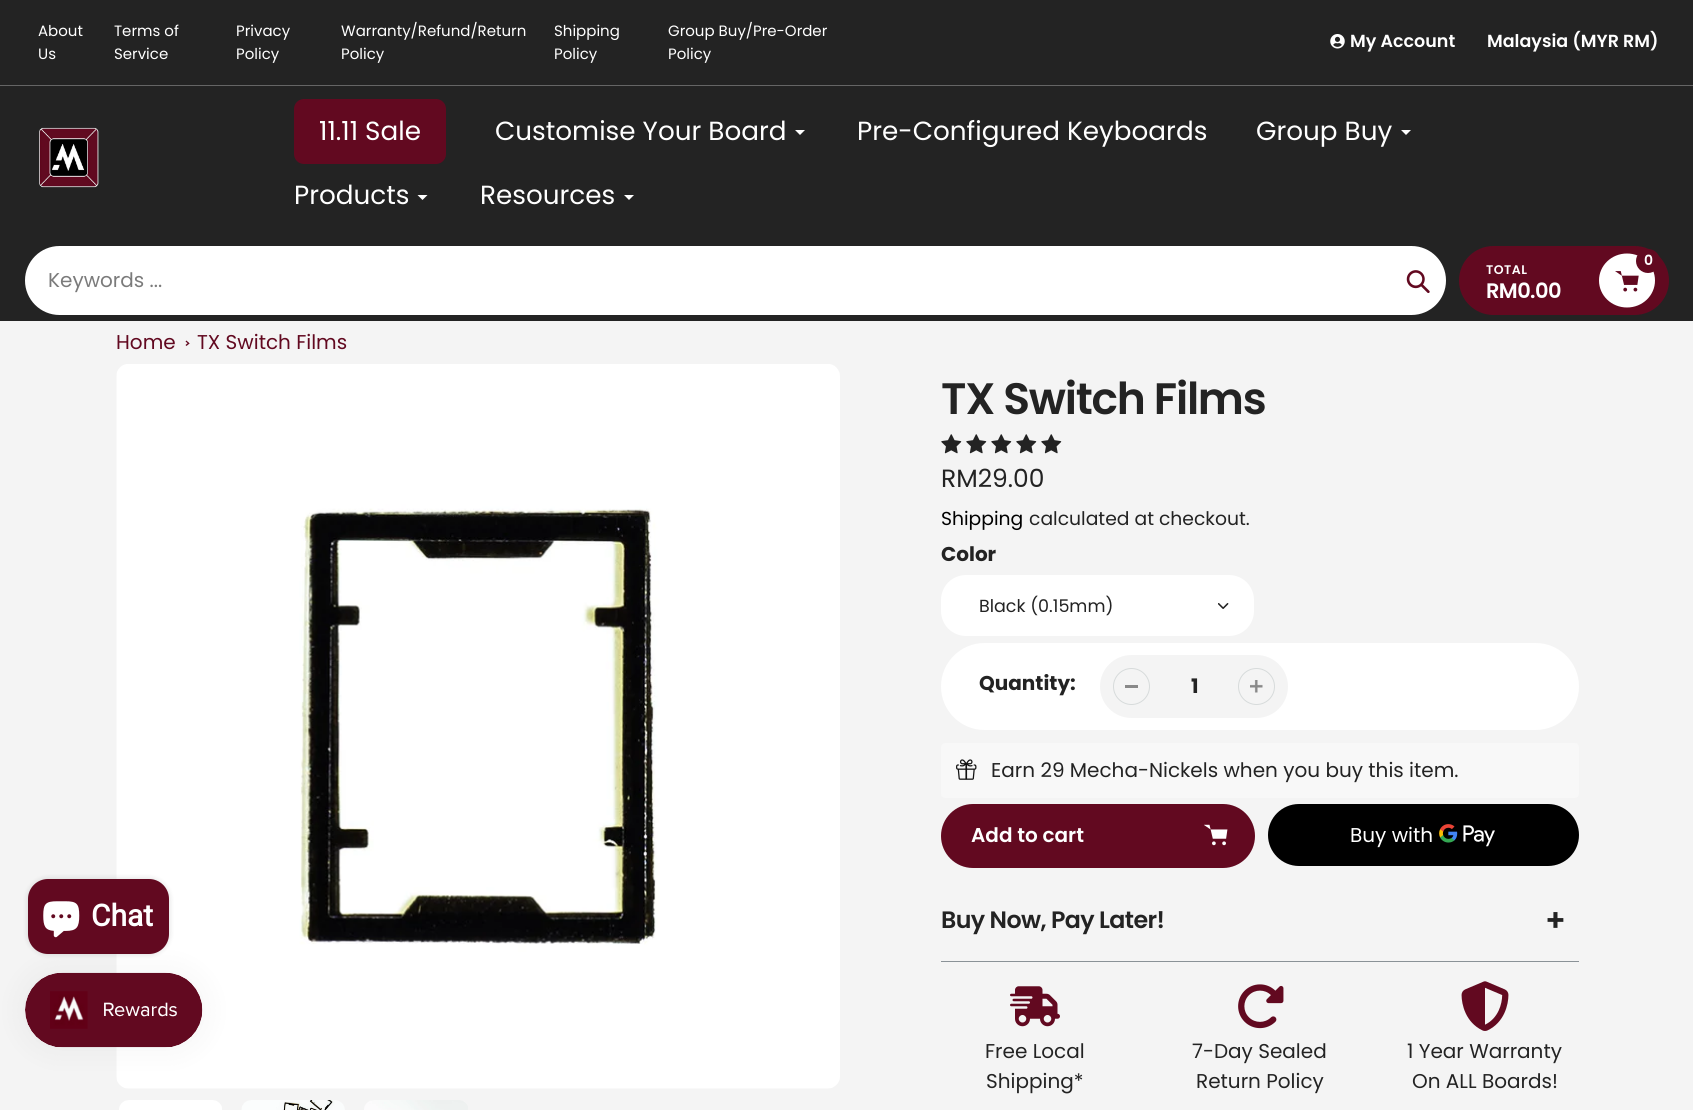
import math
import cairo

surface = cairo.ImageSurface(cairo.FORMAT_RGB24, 1693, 1110)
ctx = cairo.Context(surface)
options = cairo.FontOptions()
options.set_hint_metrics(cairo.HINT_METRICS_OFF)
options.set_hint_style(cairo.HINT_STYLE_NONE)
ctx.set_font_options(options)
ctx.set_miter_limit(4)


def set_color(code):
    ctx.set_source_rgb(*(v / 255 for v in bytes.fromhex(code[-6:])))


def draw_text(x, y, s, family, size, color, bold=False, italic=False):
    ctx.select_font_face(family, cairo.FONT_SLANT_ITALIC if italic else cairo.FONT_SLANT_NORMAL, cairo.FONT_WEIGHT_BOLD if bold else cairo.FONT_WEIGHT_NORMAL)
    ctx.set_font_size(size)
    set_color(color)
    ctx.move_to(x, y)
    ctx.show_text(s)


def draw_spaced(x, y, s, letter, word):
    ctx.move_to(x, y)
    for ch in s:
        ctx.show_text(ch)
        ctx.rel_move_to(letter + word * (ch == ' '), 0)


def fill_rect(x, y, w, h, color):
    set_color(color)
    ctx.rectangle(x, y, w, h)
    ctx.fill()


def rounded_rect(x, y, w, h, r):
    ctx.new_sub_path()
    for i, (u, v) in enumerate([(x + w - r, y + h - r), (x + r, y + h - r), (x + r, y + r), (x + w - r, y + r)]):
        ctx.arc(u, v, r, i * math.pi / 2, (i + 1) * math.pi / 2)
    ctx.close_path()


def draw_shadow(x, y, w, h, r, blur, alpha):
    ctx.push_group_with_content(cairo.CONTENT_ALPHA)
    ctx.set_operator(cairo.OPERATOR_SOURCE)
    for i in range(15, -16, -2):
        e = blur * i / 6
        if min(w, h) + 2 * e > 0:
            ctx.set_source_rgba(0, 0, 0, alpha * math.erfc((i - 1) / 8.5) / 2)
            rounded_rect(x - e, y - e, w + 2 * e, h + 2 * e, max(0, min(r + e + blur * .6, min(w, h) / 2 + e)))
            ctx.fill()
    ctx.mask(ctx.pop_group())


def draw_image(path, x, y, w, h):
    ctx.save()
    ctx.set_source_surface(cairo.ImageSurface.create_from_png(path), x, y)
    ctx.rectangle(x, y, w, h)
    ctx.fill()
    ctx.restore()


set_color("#f4f4f4")
ctx.paint()
fill_rect(0, 0, 1693, 321, "#232323")
fill_rect(0, 85, 1693, 1, "#656565")
draw_text(38, 36, "About", "Poppins", 15, "#ffffff")
draw_text(38, 59, "Us", "Poppins", 15, "#ffffff")
draw_text(114, 36, "Terms of", "Poppins", 15, "#ffffff")
draw_text(114, 59, "Service", "Poppins", 15, "#ffffff")
draw_text(236, 36, "Privacy", "Poppins", 15, "#ffffff")
draw_text(236, 59, "Policy", "Poppins", 15, "#ffffff")
draw_text(341, 36, "Warranty/Refund/Return", "Poppins", 15, "#ffffff")
draw_text(341, 59, "Policy", "Poppins", 15, "#ffffff")
draw_text(554, 36, "Shipping", "Poppins", 15, "#ffffff")
draw_text(554, 59, "Policy", "Poppins", 15, "#ffffff")
draw_text(668, 36, "Group Buy/Pre-Order", "Poppins", 15, "#ffffff")
draw_text(668, 59, "Policy", "Poppins", 15, "#ffffff")
draw_image("assets/img1.png", 1330, 34, 15, 15)
draw_text(1350, 47, "My Account", "Poppins SemiBold", 17.5, "#ffffff")
draw_text(1487, 47, "Malaysia (MYR RM)", "Poppins SemiBold", 17.5, "#ffffff")
draw_image("assets/img2.png", 39, 127, 60, 61)
set_color("#620920")
rounded_rect(294, 99, 152, 65, 10)
ctx.fill()
draw_text(319, 140, "11.11 Sale", "Poppins", 26.25, "#ffffff")
draw_text(495, 140, "Customise Your Board", "Poppins", 26.25, "#ffffff")
ctx.new_path()
ctx.move_to(805, 130)
ctx.line_to(800, 135)
ctx.line_to(795, 130)
ctx.fill()
draw_text(857, 140, "Pre-Configured Keyboards", "Poppins", 26.25, "#ffffff")
draw_text(1256, 140, "Group Buy", "Poppins", 26.25, "#ffffff")
ctx.new_path()
ctx.move_to(1411, 130)
ctx.line_to(1406, 135)
ctx.line_to(1401, 130)
ctx.fill()
draw_text(294, 204, "Products", "Poppins", 26.25, "#ffffff")
ctx.new_path()
ctx.move_to(427.5, 195)
ctx.line_to(422.5, 200)
ctx.line_to(417.5, 195)
ctx.fill()
draw_text(480, 204, "Resources", "Poppins", 26.25, "#ffffff")
ctx.new_path()
ctx.move_to(634, 195)
ctx.line_to(629, 200)
ctx.line_to(624, 195)
ctx.fill()
rounded_rect(25, 246, 1421, 69, 34.5)
ctx.fill()
draw_text(48, 287, "Keywords ...", "Poppins", 20, "#7b7b7b")
draw_image("assets/img3.png", 1406, 270, 24, 23)
set_color("#620920")
rounded_rect(1459, 246, 210, 69, 34.5)
ctx.fill()
set_color("#ffffff")
ctx.new_path()
ctx.move_to(1627, 253.5)
ctx.curve_to(1642.5, 253.5, 1655, 265.5, 1655, 280.5)
ctx.curve_to(1655, 295.5, 1642.5, 307.5, 1627, 307.5)
ctx.curve_to(1611.5, 307.5, 1599, 295.5, 1599, 280.5)
ctx.curve_to(1599, 265.5, 1611.5, 253.5, 1627, 253.5)
ctx.close_path()
ctx.fill()
draw_image("assets/img4.png", 1615, 271, 24, 21)
set_color("#620920")
ctx.arc(1648, 261, 12, 0, 2 * math.pi)
ctx.fill()
draw_text(1644, 265, "0", "Poppins SemiBold", 14, "#ffffff")
ctx.set_font_size(12.5)
draw_spaced(1486, 274, "TOTAL", 0.5, 0)
ctx.set_font_size(21)
draw_spaced(1486, 298, "RM0.00", -0.6, 0)
draw_text(116, 349, "Home", "Poppins", 20, "#620920")
ctx.new_path()
ctx.move_to(186.5, 340.5)
ctx.line_to(189.5, 343.5)
ctx.line_to(188.5, 344)
ctx.line_to(185.5, 341.5)
ctx.close_path()
ctx.fill()
ctx.new_path()
ctx.move_to(188.5, 342.5)
ctx.line_to(189.5, 343.5)
ctx.line_to(186.5, 346)
ctx.line_to(185.5, 345)
ctx.close_path()
ctx.fill()
draw_text(197, 349, "TX Switch Films", "Poppins", 20, "#620920")
draw_image("assets/img5.png", 116, 364, 724, 725)
draw_image("assets/img6.png", 119, 1100, 103, 10)
draw_image("assets/img7.png", 241, 1100, 104, 10)
draw_image("assets/img8.png", 364, 1100, 104, 10)
ctx.select_font_face("Poppins SemiBold")
ctx.set_font_size(44)
set_color("#232323")
draw_spaced(941, 414, "TX Switch Films", -1.25, 0)
draw_image("assets/img9.png", 941, 434, 21, 20)
draw_image("assets/img9.png", 966, 434, 21, 20)
draw_image("assets/img9.png", 991, 434, 21, 20)
draw_image("assets/img9.png", 1016, 434, 21, 20)
draw_image("assets/img9.png", 1041, 434, 21, 20)
draw_text(941, 487, "RM29.00", "Poppins", 25, "#232323")
draw_text(941, 525, "Shipping", "Poppins", 18.75, "#000000")
draw_text(1029, 525, "calculated at checkout.", "Poppins", 18.75, "#232323")
draw_text(941, 561, "Color", "Poppins", 20, "#232323", bold=True)
set_color("#ffffff")
rounded_rect(941, 575, 313, 61, 25)
ctx.fill()
draw_image("assets/img10.png", 1218, 603, 11, 6)
draw_text(979, 612, "Black (0.15mm)", "Poppins", 17.5, "#232323")
set_color("#ffffff")
rounded_rect(941, 643, 638, 87, 43.5)
ctx.fill()
draw_text(979, 690, "Quantity:", "Poppins", 20, "#232323", bold=True)
set_color("#f4f4f4")
rounded_rect(1100, 655, 188, 63, 31.5)
ctx.fill()
fill_rect(1125, 685, 13, 3, "#898989")
ctx.arc(1131.5, 686.5, 18, 0, 2 * math.pi)
set_color("#d7dbdb")
ctx.set_line_width(1)
ctx.stroke()
draw_text(1191, 693, "1", "Poppins", 20, "#232323", bold=True)
draw_image("assets/img11.png", 1250, 680, 13, 13)
ctx.arc(1256.5, 686.5, 18, 0, 2 * math.pi)
set_color("#d7dbdb")
ctx.stroke()
set_color("#f8f8f8")
rounded_rect(941, 743, 638, 55, 4)
ctx.fill()
draw_image("assets/img12.png", 956, 759, 21, 21)
draw_text(991, 777, "Earn 29 Mecha-Nickels when you buy this item.", "Poppins", 20, "#232323")
set_color("#620920")
rounded_rect(941, 804, 314, 64, 32)
ctx.fill()
draw_text(971, 842, "Add to cart", "Poppins SemiBold", 20, "#ffffff")
draw_image("assets/img13.png", 1204, 824, 24, 22)
set_color("#000000")
rounded_rect(1268, 804, 311, 62, 31)
ctx.fill()
draw_text(1350, 842, "Buy with", "Poppins", 20, "#ffffff")
draw_image("assets/img14.png", 1439, 824, 56, 23)
fill_rect(941, 961, 638, 1, "#8a9297")
ctx.select_font_face("Poppins SemiBold")
ctx.set_font_size(23.75)
set_color("#232323")
draw_spaced(941, 928, "Buy Now, Pay Later!", -0.6, 0)
ctx.set_font_size(31)
draw_spaced(1545, 931, "+", -0.6, 0)
draw_image("assets/img15.png", 1010, 986, 50, 41)
draw_text(985, 1058, "Free Local", "Poppins", 20, "#232323")
draw_text(986, 1088, "Shipping*", "Poppins", 20, "#232323")
draw_image("assets/img16.png", 1238, 984, 46, 45)
draw_text(1192, 1058, "7-Day Sealed", "Poppins", 20, "#232323")
draw_text(1196, 1088, "Return Policy", "Poppins", 20, "#232323")
draw_image("assets/img17.png", 1461, 981, 48, 50)
draw_text(1407, 1058, "1 Year Warranty", "Poppins", 20, "#232323")
draw_text(1412, 1088, "On ALL Boards!", "Poppins", 20, "#232323")
set_color("#000000")
draw_shadow(28, 879, 141, 75, 20, 3, 0.15)
set_color("#620920")
rounded_rect(28, 879, 141, 75, 20)
ctx.fill()
draw_image("assets/img18.png", 43, 901, 37, 37)
draw_text(91, 926, "Chat", "Roboto", 30, "#ffffff", bold=True)
set_color("#000000")
draw_shadow(25, 973, 178, 75, 37.5, 15.5, 0.05)
draw_image("assets/img19.png", 25, 972, 178, 76)
surface.write_to_png("output.png")
